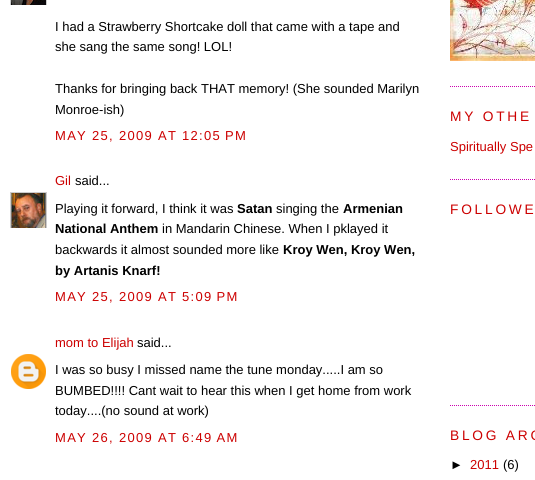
import math
import cairo

surface = cairo.ImageSurface(cairo.FORMAT_RGB24, 535, 480)
ctx = cairo.Context(surface)
options = cairo.FontOptions()
options.set_hint_metrics(cairo.HINT_METRICS_OFF)
options.set_hint_style(cairo.HINT_STYLE_NONE)
ctx.set_font_options(options)
ctx.set_miter_limit(4)


def set_color(code):
    ctx.set_source_rgb(*(v / 255 for v in bytes.fromhex(code[-6:])))


def draw_text(x, y, s, family, size, color, bold=False, italic=False):
    ctx.select_font_face(family, cairo.FONT_SLANT_ITALIC if italic else cairo.FONT_SLANT_NORMAL, cairo.FONT_WEIGHT_BOLD if bold else cairo.FONT_WEIGHT_NORMAL)
    ctx.set_font_size(size)
    set_color(color)
    ctx.move_to(x, y)
    ctx.show_text(s)


def draw_spaced(x, y, s, letter, word):
    ctx.move_to(x, y)
    for ch in s:
        ctx.show_text(ch)
        ctx.rel_move_to(letter + word * (ch == ' '), 0)


def draw_image(path, x, y, w, h):
    ctx.save()
    ctx.set_source_surface(cairo.ImageSurface.create_from_png(path), x, y)
    ctx.rectangle(x, y, w, h)
    ctx.fill()
    ctx.restore()


set_color("#ffffff")
ctx.paint()
ctx.save()
ctx.rectangle(10, 0, 37, 5)
ctx.clip()
ctx.rectangle(10.5, -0.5, 36, 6)
set_color("#cccccc")
ctx.set_line_width(1)
ctx.stroke()
ctx.restore()
draw_image("assets/img1.png", 11, 0, 35, 5)
draw_text(55, 31, "I had a Strawberry Shortcake doll that came with a tape and", "Liberation Sans", 13, "#000000")
draw_text(55, 51, "she sang the same song! LOL!", "Liberation Sans", 13, "#000000")
draw_text(55, 93, "Thanks for bringing back THAT memory! (She sounded Marilyn", "Liberation Sans", 13, "#000000")
draw_text(55, 114, "Monroe-ish)", "Liberation Sans", 13, "#000000")
set_color("#cc0000")
draw_spaced(55, 140, "MAY 25, 2009 AT 12:05 PM", 1.3, 0)
draw_text(55, 185, "Gil", "Liberation Sans", 13, "#cc0000")
draw_text(75, 185, "said...", "Liberation Sans", 13, "#000000")
ctx.save()
ctx.rectangle(10, 192, 37, 36)
ctx.clip()
ctx.rectangle(10.5, 192.5, 36, 36)
set_color("#cccccc")
ctx.set_line_width(1)
ctx.stroke()
ctx.restore()
draw_image("assets/img2.png", 11, 193, 35, 35)
draw_text(55, 213, "Playing it forward, I think it was", "Liberation Sans", 13, "#000000")
draw_text(237, 213, "Satan", "Liberation Sans", 13, "#000000", bold=True)
draw_text(276, 213, "singing the", "Liberation Sans", 13, "#000000")
draw_text(343, 213, "Armenian", "Liberation Sans", 13, "#000000", bold=True)
draw_text(55, 233, "National Anthem", "Liberation Sans", 13, "#000000", bold=True)
draw_text(162, 233, "in Mandarin Chinese. When I pklayed it", "Liberation Sans", 13, "#000000")
draw_text(55, 254, "backwards it almost sounded more like", "Liberation Sans", 13, "#000000")
draw_text(283, 254, "Kroy Wen, Kroy Wen,", "Liberation Sans", 13, "#000000", bold=True)
draw_text(55, 275, "by Artanis Knarf!", "Liberation Sans", 13, "#000000", bold=True)
ctx.select_font_face("Liberation Sans")
set_color("#cc0000")
draw_spaced(55, 301, "MAY 25, 2009 AT 5:09 PM", 1.3, 0)
draw_text(55, 347, "mom to Elijah", "Liberation Sans", 13, "#cc0000")
draw_text(137, 347, "said...", "Liberation Sans", 13, "#000000")
draw_image("assets/img3.png", 11, 354, 35, 35)
draw_text(55, 374, "I was so busy I missed name the tune monday.....I am so", "Liberation Sans", 13, "#000000")
draw_text(55, 395, "BUMBED!!!! Cant wait to hear this when I get home from work", "Liberation Sans", 13, "#000000")
draw_text(55, 415, "today....(no sound at work)", "Liberation Sans", 13, "#000000")
set_color("#cc0000")
draw_spaced(55, 442, "MAY 26, 2009 AT 6:49 AM", 1.3, 0)
ctx.new_path()
ctx.move_to(450, 86.5)
ctx.line_to(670, 86.5)
set_color("#cc00af")
ctx.set_line_width(1)
ctx.set_dash([1, 1])
ctx.stroke()
draw_image("assets/img4.png", 450, 0, 85, 61)
ctx.new_path()
ctx.move_to(450, 179.5)
ctx.line_to(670, 179.5)
ctx.stroke()
ctx.set_font_size(13.75)
set_color("#cc0000")
draw_spaced(450, 121, "MY OTHE", 2.75, 0)
draw_text(450, 151, "Spiritually Spe", "Liberation Sans", 13, "#cc0000")
ctx.new_path()
ctx.move_to(450, 405.5)
ctx.line_to(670, 405.5)
set_color("#cc00af")
ctx.stroke()
ctx.set_font_size(13.75)
set_color("#cc0000")
draw_spaced(450, 214, "FOLLOWE", 2.75, 0)
draw_spaced(450, 440, "BLOG ARC", 2.75, 0)
draw_text(450, 469, "►", "Liberation Sans", 13, "#000000")
draw_text(470, 469, "2011", "Liberation Sans", 13, "#cc0000")
draw_text(503, 469, "(6)", "Liberation Sans", 13, "#000000")
surface.write_to_png("output.png")
